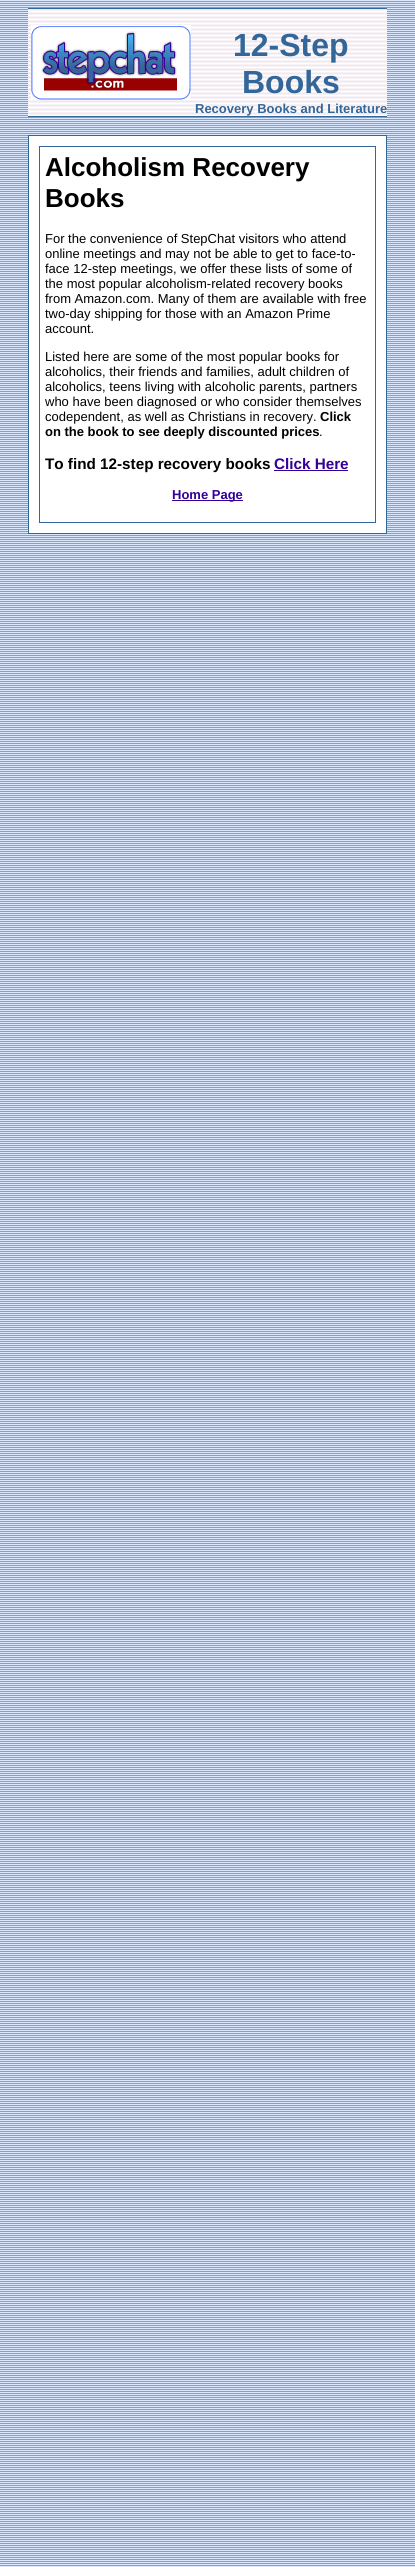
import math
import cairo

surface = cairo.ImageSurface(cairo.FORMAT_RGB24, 415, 2567)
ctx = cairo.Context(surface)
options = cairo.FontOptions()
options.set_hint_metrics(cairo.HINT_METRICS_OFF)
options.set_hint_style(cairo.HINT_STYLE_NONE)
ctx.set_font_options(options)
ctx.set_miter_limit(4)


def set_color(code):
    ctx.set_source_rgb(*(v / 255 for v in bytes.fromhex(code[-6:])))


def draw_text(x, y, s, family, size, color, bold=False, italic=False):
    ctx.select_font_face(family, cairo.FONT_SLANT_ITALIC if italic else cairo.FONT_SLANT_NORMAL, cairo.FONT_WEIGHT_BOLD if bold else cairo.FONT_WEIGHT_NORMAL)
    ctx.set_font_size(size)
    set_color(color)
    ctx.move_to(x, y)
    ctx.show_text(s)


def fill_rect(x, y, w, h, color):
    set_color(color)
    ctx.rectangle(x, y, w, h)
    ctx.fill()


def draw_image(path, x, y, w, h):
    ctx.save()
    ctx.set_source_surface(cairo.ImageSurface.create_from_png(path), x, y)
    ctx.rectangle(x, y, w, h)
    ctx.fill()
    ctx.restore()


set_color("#ffffff")
ctx.paint()
draw_image("assets/img1.png", 0, 0, 415, 2567)
fill_rect(28, 8, 359, 1, "#336699")
draw_image("assets/img2.png", 28, 9, 166, 107)
draw_image("assets/img3.png", 31, 25, 160, 75)
draw_image("assets/img4.png", 194, 9, 193, 107)
draw_text(233, 56, "12-Step", "Liberation Sans", 32, "#336699", bold=True)
draw_text(242, 93, "Books", "Liberation Sans", 32, "#336699", bold=True)
draw_text(195, 113, "Recovery Books and Literature", "Liberation Sans", 13, "#336699", bold=True)
fill_rect(28, 116, 359, 1, "#336699")
set_color("#ffffff")
ctx.rectangle(28.5, 135.5, 358, 398)
ctx.fill_preserve()
set_color("#336699")
ctx.set_line_width(1)
ctx.stroke()
ctx.rectangle(39.5, 146.5, 336, 376)
ctx.stroke()
draw_text(45, 176, "Alcoholism Recovery", "Liberation Sans", 26, "#000000", bold=True)
draw_text(45, 207, "Books", "Liberation Sans", 26, "#000000", bold=True)
draw_text(45, 243, "For the convenience of StepChat visitors who attend", "Liberation Sans", 13, "#000000")
draw_text(45, 258, "online meetings and may not be able to get to face-to-", "Liberation Sans", 13, "#000000")
draw_text(45, 273, "face 12-step meetings, we offer these lists of some of", "Liberation Sans", 13, "#000000")
draw_text(45, 288, "the most popular alcoholism-related recovery books", "Liberation Sans", 13, "#000000")
draw_text(45, 303, "from Amazon.com. Many of them are available with free", "Liberation Sans", 13, "#000000")
draw_text(45, 318, "two-day shipping for those with an Amazon Prime", "Liberation Sans", 13, "#000000")
draw_text(45, 333, "account.", "Liberation Sans", 13, "#000000")
draw_text(45, 361, "Listed here are some of the most popular books for", "Liberation Sans", 13, "#000000")
draw_text(45, 376, "alcoholics, their friends and families, adult children of", "Liberation Sans", 13, "#000000")
draw_text(45, 391, "alcoholics, teens living with alcoholic parents, partners", "Liberation Sans", 13, "#000000")
draw_text(45, 406, "who have been diagnosed or who consider themselves", "Liberation Sans", 13, "#000000")
draw_text(45, 421, "codependent, as well as Christians in recovery.", "Liberation Sans", 13, "#000000")
draw_text(320, 421, "Click", "Liberation Sans", 13, "#000000", bold=True)
draw_text(45, 436, "on the book to see deeply discounted prices", "Liberation Sans", 13, "#000000", bold=True)
draw_text(319, 436, ".", "Liberation Sans", 13, "#000000")
draw_text(45, 469, "To find 12-step recovery books", "Liberation Sans", 15.25, "#000000", bold=True)
draw_text(274, 469, "Click Here", "Liberation Sans", 15.25, "#330099", bold=True)
fill_rect(274, 470, 74, 1, "#330099")
fill_rect(172, 500, 71, 1, "#330099")
draw_text(172, 499, "Home Page", "Liberation Sans", 13, "#330099", bold=True)
surface.write_to_png("output.png")
